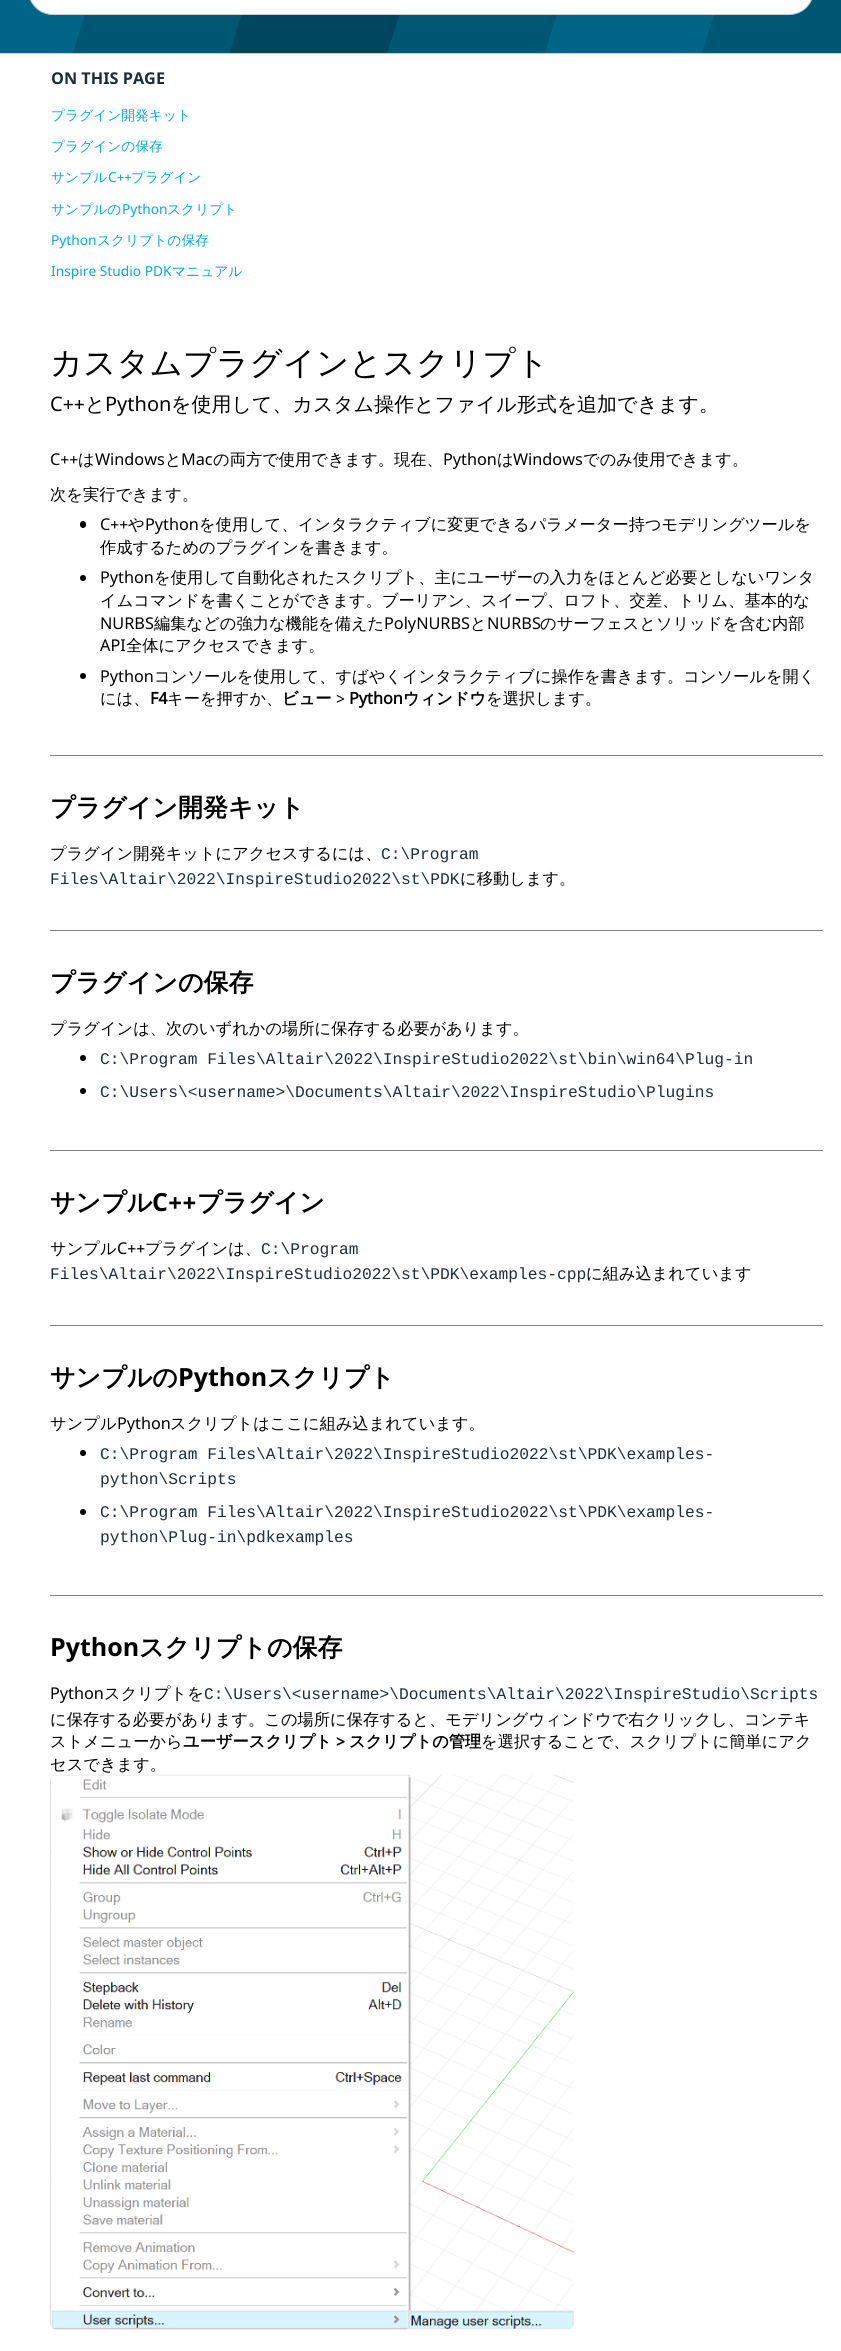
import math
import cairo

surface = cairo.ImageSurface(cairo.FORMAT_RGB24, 841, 2351)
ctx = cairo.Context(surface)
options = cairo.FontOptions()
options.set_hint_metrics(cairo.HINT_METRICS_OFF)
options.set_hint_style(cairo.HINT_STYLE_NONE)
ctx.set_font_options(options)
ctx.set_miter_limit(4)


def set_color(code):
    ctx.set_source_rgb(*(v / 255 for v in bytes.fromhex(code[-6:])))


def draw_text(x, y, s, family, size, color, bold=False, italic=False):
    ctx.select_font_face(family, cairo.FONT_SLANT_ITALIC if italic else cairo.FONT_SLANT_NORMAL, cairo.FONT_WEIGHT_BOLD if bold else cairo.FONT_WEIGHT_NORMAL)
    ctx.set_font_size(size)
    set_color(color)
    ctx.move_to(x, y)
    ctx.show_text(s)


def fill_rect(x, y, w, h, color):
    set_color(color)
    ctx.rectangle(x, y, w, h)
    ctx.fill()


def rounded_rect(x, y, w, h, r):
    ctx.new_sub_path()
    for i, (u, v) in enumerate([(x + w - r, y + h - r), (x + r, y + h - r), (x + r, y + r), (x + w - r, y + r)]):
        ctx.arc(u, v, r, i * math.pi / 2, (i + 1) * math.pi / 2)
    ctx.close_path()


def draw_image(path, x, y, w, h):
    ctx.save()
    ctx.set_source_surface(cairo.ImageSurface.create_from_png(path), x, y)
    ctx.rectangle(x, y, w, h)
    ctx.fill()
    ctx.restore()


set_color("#ffffff")
ctx.paint()
draw_image("assets/img1.png", 0, 0, 841, 54)
set_color("#ffffff")
rounded_rect(28.5, -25.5, 785, 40, 24.5)
ctx.fill_preserve()
set_color("#cccccc")
ctx.set_line_width(1)
ctx.stroke()
draw_text(51, 84, "ON THIS PAGE", "Noto Sans", 16.25, "#1d2e38", bold=True)
draw_text(51, 120, "プラグイン開発キット", "WenQuanYi Zen Hei Medium", 13.75, "#00aae6")
draw_text(51, 151, "プラグインの保存", "WenQuanYi Zen Hei Medium", 13.75, "#00aae6")
draw_text(51, 182, "サンプル", "WenQuanYi Zen Hei Medium", 13.75, "#00aae6")
draw_text(108, 182, "C++", "Noto Sans", 13.75, "#00aae6")
draw_text(131, 182, "プラグイン", "WenQuanYi Zen Hei Medium", 13.75, "#00aae6")
draw_text(51, 214, "サンプルの", "WenQuanYi Zen Hei Medium", 13.75, "#00aae6")
draw_text(122, 214, "Python", "Noto Sans", 13.75, "#00aae6")
draw_text(167, 214, "スクリプト", "WenQuanYi Zen Hei Medium", 13.75, "#00aae6")
draw_text(51, 245, "Python", "Noto Sans", 13.75, "#00aae6")
draw_text(97, 245, "スクリプトの保存", "WenQuanYi Zen Hei Medium", 13.75, "#00aae6")
draw_text(51, 276, "Inspire Studio PDK", "Noto Sans", 13.75, "#00aae6")
draw_text(172, 276, "マニュアル", "WenQuanYi Zen Hei Medium", 13.75, "#00aae6")
draw_text(50, 374, "カスタムプラグインとスクリプト", "WenQuanYi Zen Hei Medium", 32.5, "#000000")
draw_text(50, 411, "C++", "Noto Sans", 20, "#000000")
draw_text(85, 411, "と", "WenQuanYi Zen Hei Medium", 20, "#000000")
draw_text(105, 411, "Python", "Noto Sans", 20, "#000000")
draw_text(171, 411, "を使用して、カスタム操作とファイル形式を追加できます。", "WenQuanYi Zen Hei Medium", 20, "#000000")
draw_text(50, 465, "C++", "Noto Sans", 16.25, "#000000")
draw_text(78, 465, "は", "WenQuanYi Zen Hei Medium", 16.25, "#000000")
draw_text(95, 465, "Windows", "Noto Sans", 16.25, "#000000")
draw_text(165, 465, "と", "WenQuanYi Zen Hei Medium", 16.25, "#000000")
draw_text(181, 465, "Mac", "Noto Sans", 16.25, "#000000")
draw_text(213, 465, "の両方で使用できます。現在、", "WenQuanYi Zen Hei Medium", 16.25, "#000000")
draw_text(443, 465, "Python", "Noto Sans", 16.25, "#000000")
draw_text(497, 465, "は", "WenQuanYi Zen Hei Medium", 16.25, "#000000")
draw_text(513, 465, "Windows", "Noto Sans", 16.25, "#000000")
draw_text(583, 465, "でのみ使用できます。", "WenQuanYi Zen Hei Medium", 16.25, "#000000")
draw_text(50, 500, "次を実行できます。", "WenQuanYi Zen Hei Medium", 16.25, "#000000")
rounded_rect(80, 521, 6, 7, 3)
ctx.fill()
draw_text(100, 530, "C++", "Noto Sans", 16.25, "#000000")
draw_text(128, 530, "や", "WenQuanYi Zen Hei Medium", 16.25, "#000000")
draw_text(145, 530, "Python", "Noto Sans", 16.25, "#000000")
draw_text(199, 530, "を使用して、インタラクティブに変更できるパラメーター持つモデリングツールを", "WenQuanYi Zen Hei Medium", 16.25, "#000000")
draw_text(100, 553, "作成するためのプラグインを書きます。", "WenQuanYi Zen Hei Medium", 16.25, "#000000")
ctx.new_path()
ctx.arc(83, 578, 3, 0, 2 * math.pi)
ctx.fill()
draw_text(100, 583, "Python", "Noto Sans", 16.25, "#000000")
draw_text(154, 583, "を使用して自動化されたスクリプト、主にユーザーの入力をほとんど必要としないワンタ", "WenQuanYi Zen Hei Medium", 16.25, "#000000")
draw_text(100, 606, "イムコマンドを書くことができます。ブーリアン、スイープ、ロフト、交差、トリム、基本的な", "WenQuanYi Zen Hei Medium", 16.25, "#000000")
draw_text(100, 629, "NURBS", "Noto Sans", 16.25, "#000000")
draw_text(154, 629, "編集などの強力な機能を備えた", "WenQuanYi Zen Hei Medium", 16.25, "#000000")
draw_text(384, 629, "PolyNURBS", "Noto Sans", 16.25, "#000000")
draw_text(470, 629, "と", "WenQuanYi Zen Hei Medium", 16.25, "#000000")
draw_text(487, 629, "NURBS", "Noto Sans", 16.25, "#000000")
draw_text(540, 629, "のサーフェスとソリッドを含む内部", "WenQuanYi Zen Hei Medium", 16.25, "#000000")
draw_text(100, 651, "API", "Noto Sans", 16.25, "#000000")
draw_text(126, 651, "全体にアクセスできます。", "WenQuanYi Zen Hei Medium", 16.25, "#000000")
ctx.new_path()
ctx.arc(83, 676, 3, 0, 2 * math.pi)
ctx.fill()
draw_text(100, 682, "Python", "Noto Sans", 16.25, "#000000")
draw_text(154, 682, "コンソールを使用して、すばやくインタラクティブに操作を書きます。コンソールを開く", "WenQuanYi Zen Hei Medium", 16.25, "#000000")
draw_text(100, 704, "には、", "WenQuanYi Zen Hei Medium", 16.25, "#000000")
draw_text(150, 704, "F4", "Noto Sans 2", 16.25, "#000000", bold=True)
draw_text(167, 704, "キーを押すか、", "WenQuanYi Zen Hei Medium", 16.25, "#000000")
draw_text(282, 704, "ビュー", "WenQuanYi Zen Hei", 16.25, "#000000", bold=True)
draw_text(336, 704, ">", "Noto Sans", 16.25, "#000000")
draw_text(349, 704, "Python", "Noto Sans 2", 16.25, "#000000", bold=True)
draw_text(403, 704, "ウィンドウ", "WenQuanYi Zen Hei", 16.25, "#000000", bold=True)
draw_text(486, 704, "を選択します。", "WenQuanYi Zen Hei Medium", 16.25, "#000000")
fill_rect(50, 755, 773, 1, "#828282")
draw_text(50, 816, "プラグイン開発キット", "WenQuanYi Zen Hei", 25, "#000000", bold=True)
draw_text(50, 859, "プラグイン開発キットにアクセスするには、", "WenQuanYi Zen Hei Medium", 16.25, "#000000")
draw_text(381, 859, "C:\\Program", "Liberation Mono", 16.25, "#1d2e38")
draw_text(50, 884, "Files\\Altair\\2022\\InspireStudio2022\\st\\PDK", "Liberation Mono", 16.25, "#1d2e38")
draw_text(460, 884, "に移動します。", "WenQuanYi Zen Hei Medium", 16.25, "#000000")
fill_rect(50, 930, 773, 1, "#828282")
draw_text(50, 991, "プラグインの保存", "WenQuanYi Zen Hei", 25, "#000000", bold=True)
draw_text(50, 1034, "プラグインは、次のいずれかの場所に保存する必要があります。", "WenQuanYi Zen Hei Medium", 16.25, "#000000")
ctx.new_path()
ctx.arc(83, 1058, 3, 0, 2 * math.pi)
ctx.fill()
draw_text(100, 1064, "C:\\Program Files\\Altair\\2022\\InspireStudio2022\\st\\bin\\win64\\Plug-in", "Liberation Mono", 16.25, "#1d2e38")
set_color("#000000")
ctx.new_path()
ctx.arc(83, 1091, 3, 0, 2 * math.pi)
ctx.fill()
draw_text(100, 1097, "C:\\Users\\<username>\\Documents\\Altair\\2022\\InspireStudio\\Plugins", "Liberation Mono", 16.25, "#1d2e38")
fill_rect(50, 1150, 773, 1, "#828282")
draw_text(50, 1211, "サンプル", "WenQuanYi Zen Hei", 25, "#000000", bold=True)
draw_text(152, 1211, "C++", "Noto Sans", 25, "#000000", bold=True)
draw_text(197, 1211, "プラグイン", "WenQuanYi Zen Hei", 25, "#000000", bold=True)
draw_text(50, 1254, "サンプル", "WenQuanYi Zen Hei Medium", 16.25, "#000000")
draw_text(117, 1254, "C++", "Noto Sans", 16.25, "#000000")
draw_text(145, 1254, "プラグインは、", "WenQuanYi Zen Hei Medium", 16.25, "#000000")
draw_text(261, 1254, "C:\\Program", "Liberation Mono", 16.25, "#1d2e38")
draw_text(50, 1279, "Files\\Altair\\2022\\InspireStudio2022\\st\\PDK\\examples-cpp", "Liberation Mono", 16.25, "#1d2e38")
draw_text(586, 1279, "に組み込まれています", "WenQuanYi Zen Hei Medium", 16.25, "#000000")
fill_rect(50, 1325, 773, 1, "#828282")
draw_text(50, 1386, "サンプルの", "WenQuanYi Zen Hei", 25, "#000000", bold=True)
draw_text(178, 1386, "Python", "Noto Sans", 25, "#000000", bold=True)
draw_text(267, 1386, "スクリプト", "WenQuanYi Zen Hei", 25, "#000000", bold=True)
draw_text(50, 1429, "サンプル", "WenQuanYi Zen Hei Medium", 16.25, "#000000")
draw_text(117, 1429, "Python", "Noto Sans", 16.25, "#000000")
draw_text(170, 1429, "スクリプトはここに組み込まれています。", "WenQuanYi Zen Hei Medium", 16.25, "#000000")
ctx.new_path()
ctx.arc(83, 1453, 3, 0, 2 * math.pi)
ctx.fill()
draw_text(100, 1459, "C:\\Program Files\\Altair\\2022\\InspireStudio2022\\st\\PDK\\examples-", "Liberation Mono", 16.25, "#1d2e38")
draw_text(100, 1484, "python\\Scripts", "Liberation Mono", 16.25, "#1d2e38")
set_color("#000000")
ctx.new_path()
ctx.arc(83, 1512, 3, 0, 2 * math.pi)
ctx.fill()
draw_text(100, 1517, "C:\\Program Files\\Altair\\2022\\InspireStudio2022\\st\\PDK\\examples-", "Liberation Mono", 16.25, "#1d2e38")
draw_text(100, 1542, "python\\Plug-in\\pdkexamples", "Liberation Mono", 16.25, "#1d2e38")
fill_rect(50, 1595, 773, 1, "#828282")
draw_text(50, 1656, "Python", "Noto Sans", 25, "#000000", bold=True)
draw_text(139, 1656, "スクリプトの保存", "WenQuanYi Zen Hei", 25, "#000000", bold=True)
draw_text(50, 1699, "Python", "Noto Sans", 16.25, "#000000")
draw_text(104, 1699, "スクリプトを", "WenQuanYi Zen Hei Medium", 16.25, "#000000")
draw_text(204, 1699, "C:\\Users\\<username>\\Documents\\Altair\\2022\\InspireStudio\\Scripts", "Liberation Mono", 16.25, "#1d2e38")
draw_text(50, 1725, "に保存する必要があります。この場所に保存すると、モデリングウィンドウで右クリックし、コンテキ", "WenQuanYi Zen Hei Medium", 16.25, "#000000")
draw_text(50, 1747, "ストメニューから", "WenQuanYi Zen Hei Medium", 16.25, "#000000")
draw_text(183, 1747, "ユーザースクリプト", "WenQuanYi Zen Hei", 16.25, "#000000", bold=True)
draw_text(336, 1747, ">", "Noto Sans 2", 16.25, "#000000", bold=True)
draw_text(349, 1747, "スクリプトの管理", "WenQuanYi Zen Hei", 16.25, "#000000", bold=True)
draw_text(481, 1747, "を選択することで、スクリプトに簡単にアク", "WenQuanYi Zen Hei Medium", 16.25, "#000000")
draw_text(50, 1770, "セスできます。", "WenQuanYi Zen Hei Medium", 16.25, "#000000")
draw_image("assets/img2.png", 50, 1774, 524, 556)
surface.write_to_png("output.png")
